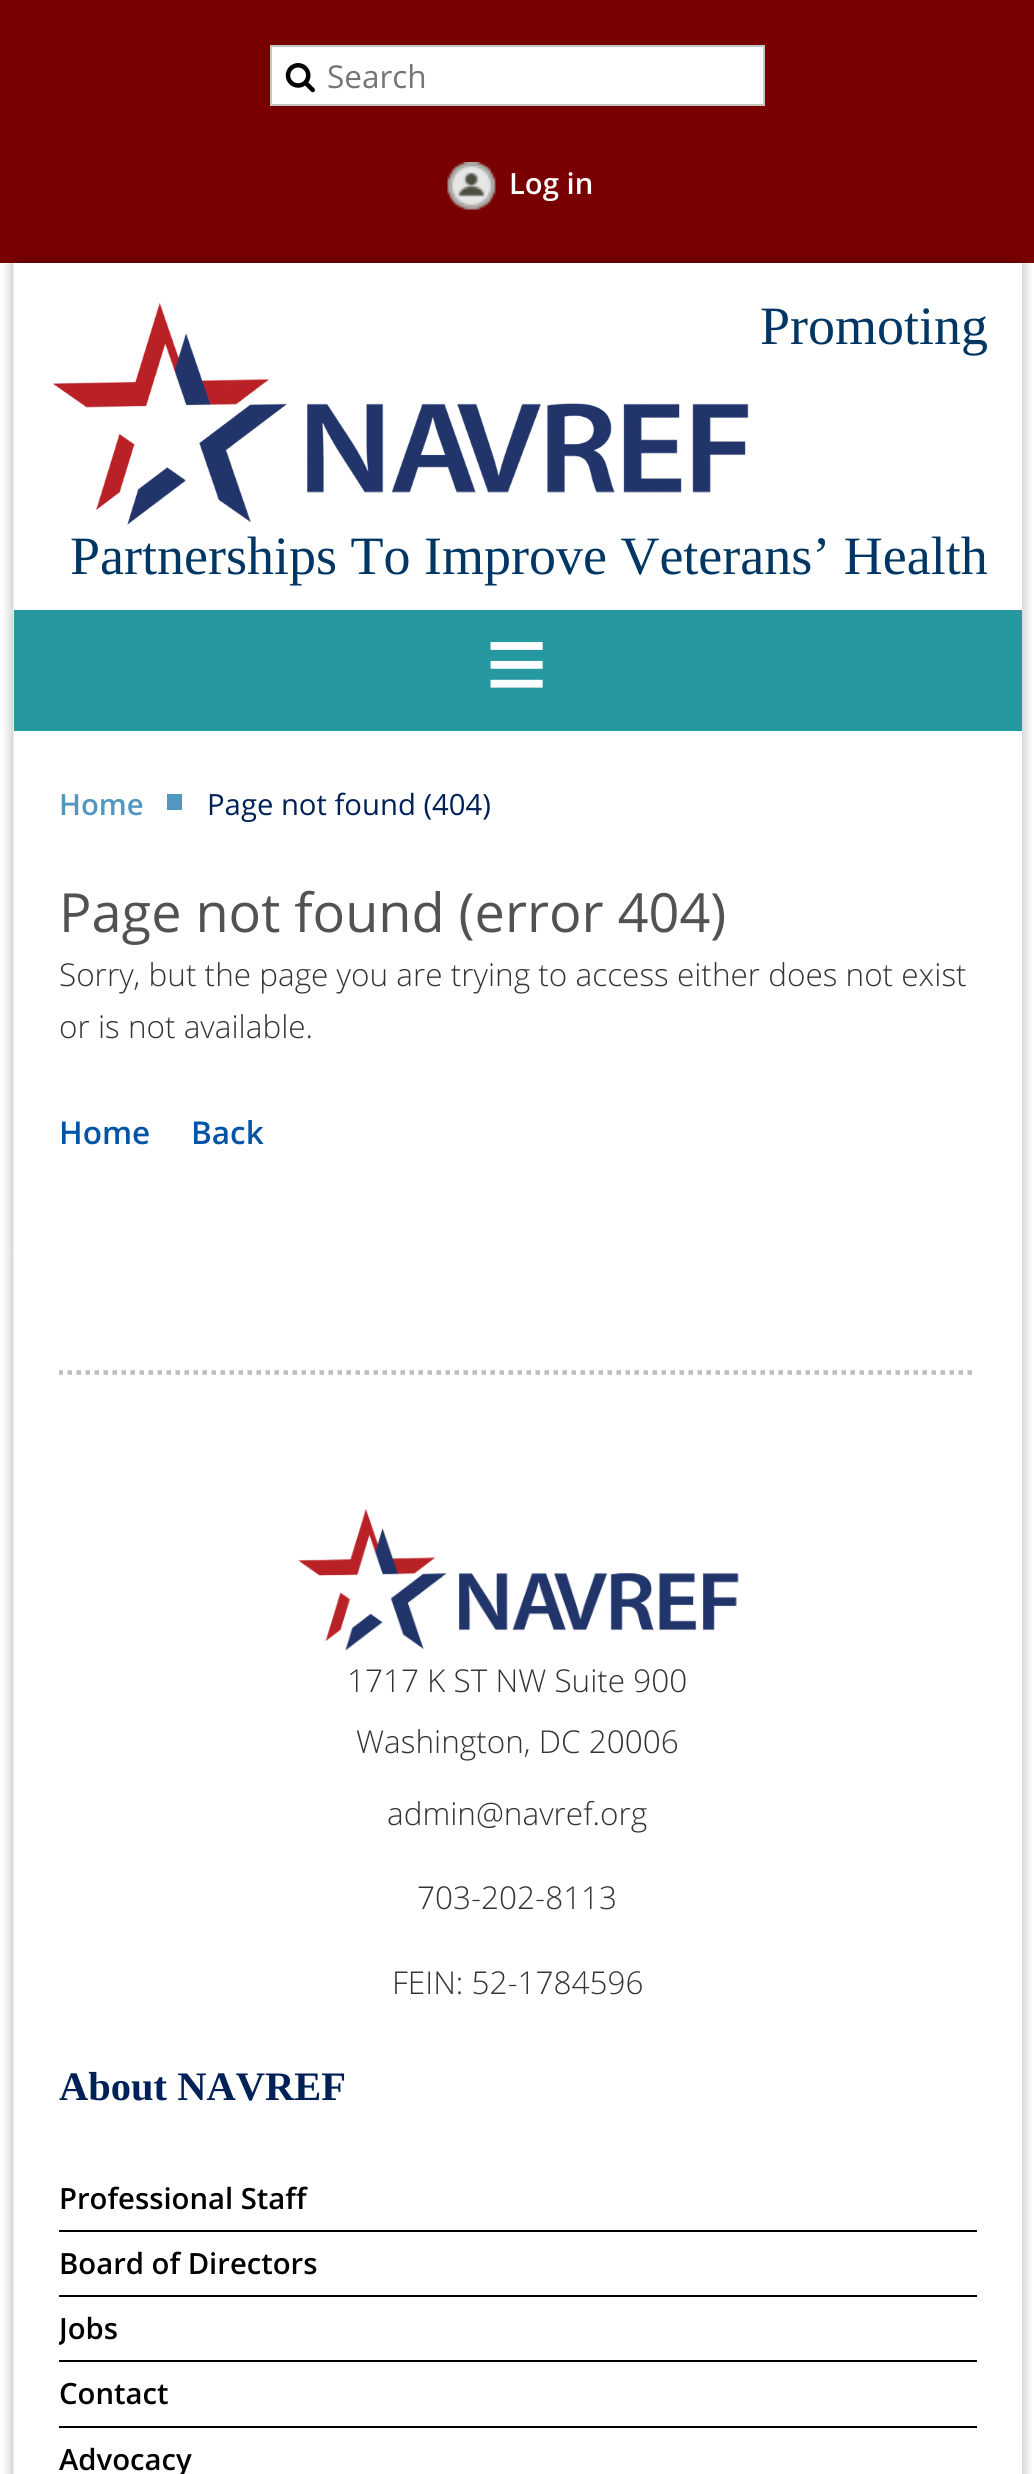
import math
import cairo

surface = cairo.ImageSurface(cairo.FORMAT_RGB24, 1034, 2474)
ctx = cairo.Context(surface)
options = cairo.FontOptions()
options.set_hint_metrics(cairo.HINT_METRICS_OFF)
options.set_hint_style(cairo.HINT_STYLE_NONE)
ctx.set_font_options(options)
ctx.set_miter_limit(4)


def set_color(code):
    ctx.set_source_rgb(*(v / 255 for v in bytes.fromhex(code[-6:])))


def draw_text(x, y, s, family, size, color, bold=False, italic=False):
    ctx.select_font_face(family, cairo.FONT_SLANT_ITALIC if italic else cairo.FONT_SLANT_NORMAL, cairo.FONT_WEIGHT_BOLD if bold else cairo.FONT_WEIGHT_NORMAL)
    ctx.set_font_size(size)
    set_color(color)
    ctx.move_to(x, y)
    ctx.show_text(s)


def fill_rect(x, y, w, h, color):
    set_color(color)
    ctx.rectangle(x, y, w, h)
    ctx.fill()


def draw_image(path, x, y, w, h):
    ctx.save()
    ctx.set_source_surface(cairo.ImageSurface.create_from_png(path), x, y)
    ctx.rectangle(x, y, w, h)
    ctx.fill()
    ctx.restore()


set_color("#ffffff")
ctx.paint()
fill_rect(0, 0, 1034, 263, "#790000")
set_color("#ffffff")
ctx.rectangle(271, 46, 493, 59)
ctx.fill_preserve()
set_color("#c6c6c6")
ctx.stroke()
draw_image("assets/img1.png", 285, 63, 30, 30)
draw_text(327, 88, "Search", "Open Sans", 31.5, "#757575")
draw_image("assets/img2.png", 447, 162, 49, 48)
draw_text(509, 194, "Log in", "Open Sans SemiBold", 29.25, "#ffffff")
draw_image("assets/img3.png", 8, 255, 1019, 8)
draw_image("assets/img4.png", 25, 255, 985, 8)
draw_image("assets/img5.png", 3, 263, 1029, 347)
draw_image("assets/img7.png", 3, 609, 1029, 123)
fill_rect(1021, 263, 1, 347, "#ffffff")
draw_image("assets/img6.png", 53, 303, 696, 222)
draw_text(760, 344, "Promoting", "Liberation Serif", 54, "#003663")
draw_text(70, 574, "Partnerships To Improve Veterans’ Health", "Liberation Serif", 54, "#003663")
fill_rect(14, 610, 1008, 121, "#2699a0")
draw_text(485, 702, "≡", "Liberation Serif", 112, "#ffffff", bold=True)
draw_image("assets/img8.png", 3, 731, 1029, 518)
fill_rect(1021, 731, 1, 518, "#ffffff")
draw_text(59, 815, "Home", "Open Sans SemiBold", 29.25, "#5297bf")
fill_rect(167, 794, 15, 16, "#5297bf")
draw_text(207, 815, "Page not found (404)", "Open Sans", 29.25, "#002157")
draw_text(59, 932, "Page not found (error 404)", "Open Sans", 54, "#525252")
draw_text(59, 986, "Sorry, but the page you are trying to access either does not exist", "Open Sans Light", 31.5, "#333333")
draw_text(59, 1038, "or is not available.", "Open Sans Light", 31.5, "#333333")
draw_text(59, 1144, "Home", "Open Sans SemiBold", 31.5, "#0054a6")
draw_text(191, 1144, "Back", "Open Sans SemiBold", 31.5, "#0054a6")
draw_image("assets/img9.png", 3, 1248, 1029, 1226)
fill_rect(1021, 1249, 1, 1225, "#ffffff")
ctx.save()
ctx.rectangle(59, 1339, 918, 121)
ctx.clip()
ctx.new_path()
ctx.move_to(58.5, 1372.5)
ctx.line_to(976.5, 1372.5)
set_color("#bdbdbd")
ctx.set_line_width(4.5)
ctx.set_dash([4.5, 4.5])
ctx.stroke()
ctx.restore()
draw_image("assets/img10.png", 298, 1509, 441, 142)
draw_text(347, 1692, "1717 K ST NW Suite 900", "Open Sans Light", 31.5, "#333333")
draw_text(356, 1753, "Washington, DC 20006", "Open Sans Light", 31.5, "#333333")
draw_text(387, 1825, "admin@navref.org", "Open Sans Light", 31.5, "#333333")
draw_text(417, 1909, "703-202-8113", "Open Sans Light", 31.5, "#333333")
draw_text(392, 1994, "FEIN: 52-1784596", "Open Sans Light", 31.5, "#333333")
draw_text(59, 2100, "About NAVREF", "Liberation Serif", 40.5, "#002157", bold=True)
fill_rect(59, 2230, 918, 2, "#000000")
draw_text(59, 2209, "Professional Staff", "Open Sans SemiBold", 29.25, "#000000")
fill_rect(59, 2295, 918, 2, "#000000")
draw_text(59, 2274, "Board of Directors", "Open Sans SemiBold", 29.25, "#000000")
fill_rect(59, 2360, 918, 2, "#000000")
ctx.save()
ctx.rectangle(59, 2167, 918, 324)
ctx.clip()
draw_text(59, 2339, "Jobs", "Open Sans SemiBold", 29.25, "#000000")
ctx.restore()
fill_rect(59, 2426, 918, 2, "#000000")
draw_text(59, 2404, "Contact", "Open Sans SemiBold", 29.25, "#000000")
draw_text(59, 2470, "Advocacy", "Open Sans SemiBold", 29.25, "#000000")
surface.write_to_png("output.png")
